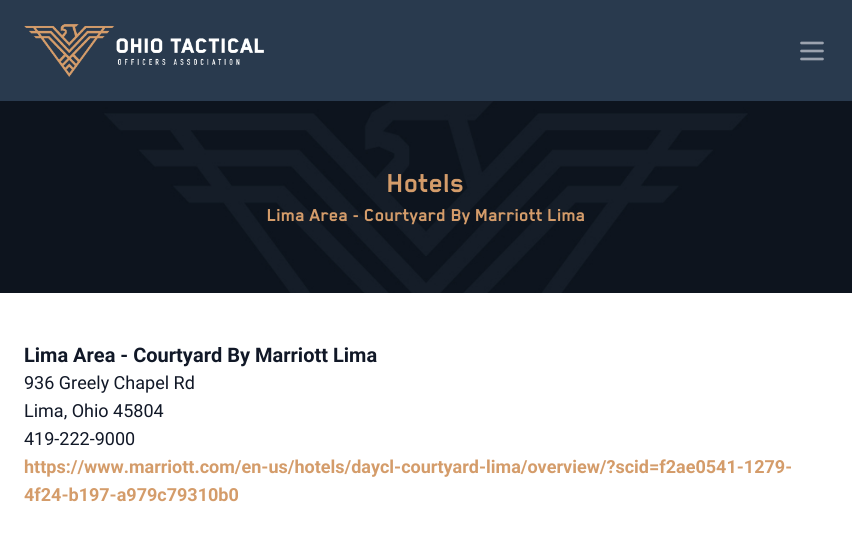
import math
import cairo

surface = cairo.ImageSurface(cairo.FORMAT_RGB24, 852, 551)
ctx = cairo.Context(surface)
options = cairo.FontOptions()
options.set_hint_metrics(cairo.HINT_METRICS_OFF)
options.set_hint_style(cairo.HINT_STYLE_NONE)
ctx.set_font_options(options)
ctx.set_miter_limit(4)


def set_color(code):
    ctx.set_source_rgb(*(v / 255 for v in bytes.fromhex(code[-6:])))


def draw_text(x, y, s, family, size, color, bold=False, italic=False):
    ctx.select_font_face(family, cairo.FONT_SLANT_ITALIC if italic else cairo.FONT_SLANT_NORMAL, cairo.FONT_WEIGHT_BOLD if bold else cairo.FONT_WEIGHT_NORMAL)
    ctx.set_font_size(size)
    set_color(color)
    ctx.move_to(x, y)
    ctx.show_text(s)


def fill_rect(x, y, w, h, color):
    set_color(color)
    ctx.rectangle(x, y, w, h)
    ctx.fill()


def draw_image(path, x, y, w, h):
    ctx.save()
    ctx.set_source_surface(cairo.ImageSurface.create_from_png(path), x, y)
    ctx.rectangle(x, y, w, h)
    ctx.fill()
    ctx.restore()


set_color("#ffffff")
ctx.paint()
fill_rect(0, 0, 852, 101, "#293a4e")
draw_image("assets/img1.png", 24, 24, 240, 53)
ctx.new_path()
ctx.move_to(801.5, 43)
ctx.line_to(822.5, 43)
ctx.move_to(801.5, 51)
ctx.line_to(822.5, 51)
ctx.move_to(801.5, 59)
ctx.line_to(822.5, 59)
set_color("#9ca3af")
ctx.set_line_width(2.7)
ctx.set_line_cap(cairo.LINE_CAP_ROUND)
ctx.set_line_join(cairo.LINE_JOIN_ROUND)
ctx.stroke()
draw_image("assets/img2.png", 0, 101, 852, 192)
draw_text(387, 192, "Hotels", "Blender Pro", 30, "#d49c6a", bold=True)
draw_text(267, 221, "Lima Area - Courtyard By Marriott Lima", "Blender Pro", 20, "#d49c6a", bold=True)
draw_text(24, 362, "Lima Area - Courtyard By Marriott Lima", "Roboto", 20, "#111827", bold=True)
draw_text(24, 389, "936 Greely Chapel Rd", "Roboto", 18, "#111827")
draw_text(24, 417, "Lima, Ohio 45804", "Roboto", 18, "#111827")
draw_text(24, 445, "419-222-9000", "Roboto", 18, "#111827")
draw_text(24, 473, "https://www.marriott.com/en-us/hotels/daycl-courtyard-lima/overview/?scid=f2ae0541-1279-", "Roboto", 18, "#d49c6a", bold=True)
draw_text(24, 501, "4f24-b197-a979c79310b0", "Roboto", 18, "#d49c6a", bold=True)
surface.write_to_png("output.png")
